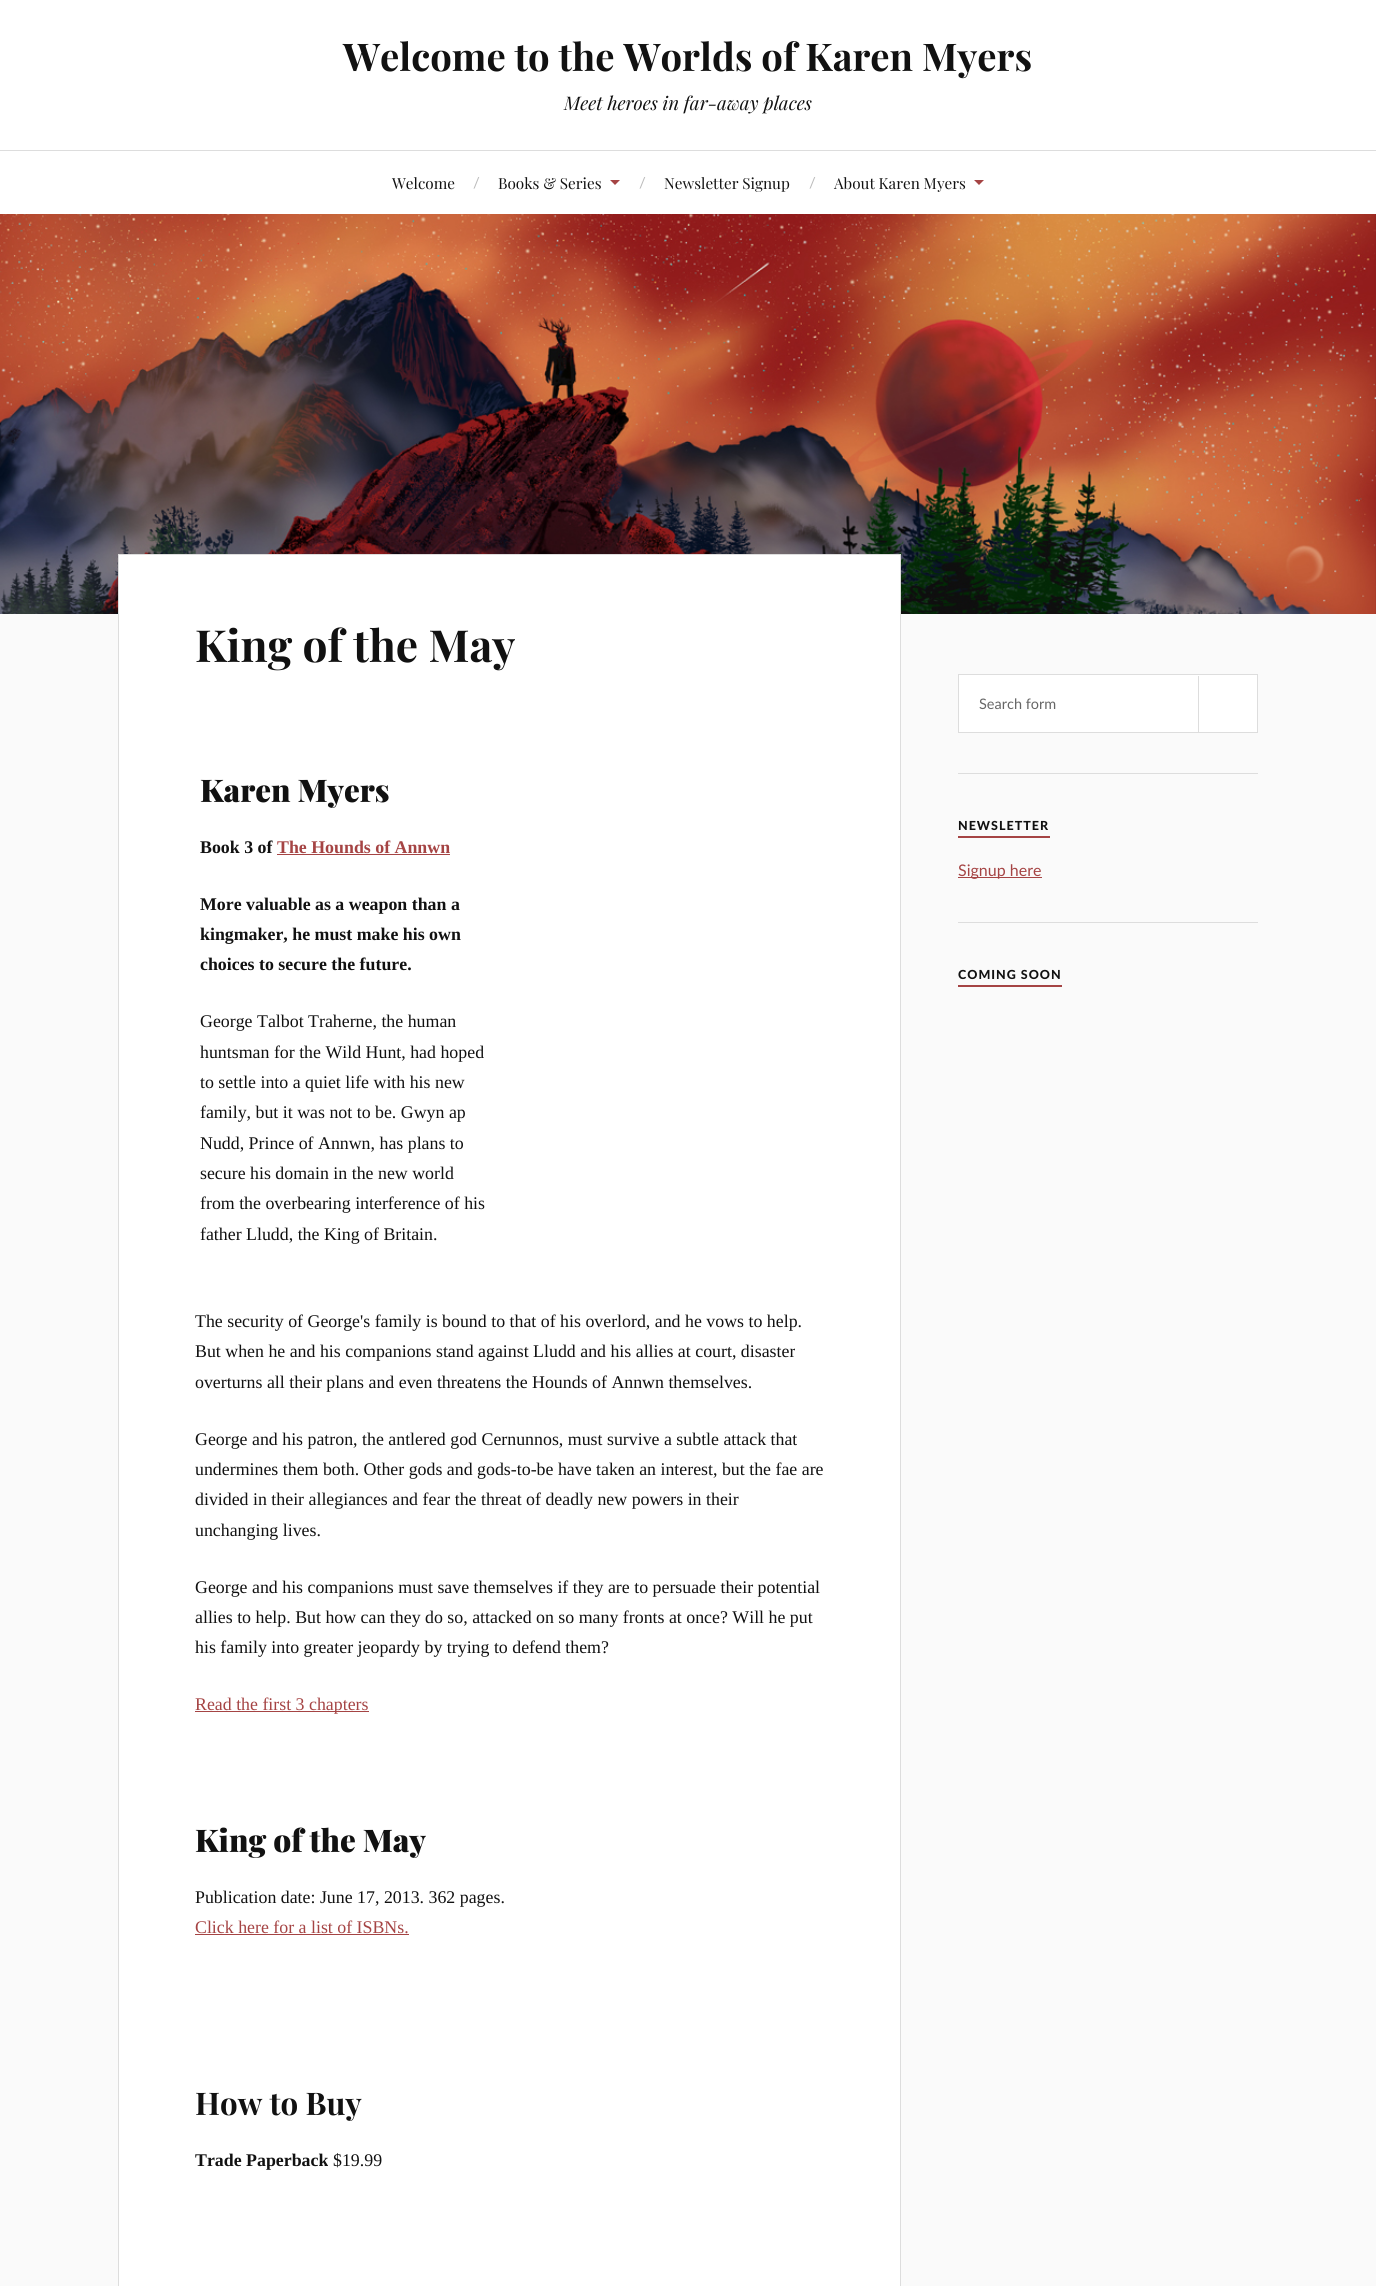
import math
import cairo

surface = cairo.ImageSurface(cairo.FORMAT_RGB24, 1376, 2286)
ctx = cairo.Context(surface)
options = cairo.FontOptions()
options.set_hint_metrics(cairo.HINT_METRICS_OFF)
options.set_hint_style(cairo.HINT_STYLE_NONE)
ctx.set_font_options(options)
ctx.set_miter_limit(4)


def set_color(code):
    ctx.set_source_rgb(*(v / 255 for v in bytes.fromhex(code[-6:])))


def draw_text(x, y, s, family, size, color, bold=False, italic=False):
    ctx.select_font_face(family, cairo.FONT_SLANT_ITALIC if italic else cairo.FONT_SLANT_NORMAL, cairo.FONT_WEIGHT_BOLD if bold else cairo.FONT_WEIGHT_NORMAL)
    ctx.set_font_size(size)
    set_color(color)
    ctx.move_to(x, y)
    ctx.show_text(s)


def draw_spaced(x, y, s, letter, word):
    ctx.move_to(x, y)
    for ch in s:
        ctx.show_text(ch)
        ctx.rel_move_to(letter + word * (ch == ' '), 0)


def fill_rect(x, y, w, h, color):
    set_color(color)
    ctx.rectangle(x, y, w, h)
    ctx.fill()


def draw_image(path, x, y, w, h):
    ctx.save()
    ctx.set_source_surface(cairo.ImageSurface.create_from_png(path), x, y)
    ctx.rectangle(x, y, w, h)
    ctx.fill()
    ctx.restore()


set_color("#fafafa")
ctx.paint()
fill_rect(0, 0, 1376, 150, "#ffffff")
draw_text(343, 71, "Welcome to the Worlds of Karen Myers", "Playfair Display", 38.25, "#111111", bold=True)
draw_text(564, 110, "Meet heroes in far-away places", "Playfair Display", 18.75, "#111111", italic=True)
fill_rect(0, 151, 1376, 63, "#ffffff")
fill_rect(0, 150, 1376, 1, "#dddddd")
draw_text(392, 189, "Welcome", "Playfair Display", 15.25, "#111111")
draw_text(473, 188, "/", "Lato", 15, "#bbbbbb")
draw_text(498, 189, "Books & Series", "Playfair Display", 15.25, "#111111")
set_color("#a54444")
ctx.new_path()
ctx.move_to(610, 180)
ctx.line_to(620, 180)
ctx.line_to(615, 185)
ctx.close_path()
ctx.fill()
draw_text(639, 188, "/", "Lato", 15, "#bbbbbb")
draw_text(664, 189, "Newsletter Signup", "Playfair Display", 15.25, "#111111")
draw_text(809, 188, "/", "Lato", 15, "#bbbbbb")
draw_text(834, 189, "About Karen Myers", "Playfair Display", 15.25, "#111111")
set_color("#a54444")
ctx.new_path()
ctx.move_to(974, 180)
ctx.line_to(984, 180)
ctx.line_to(979, 185)
ctx.close_path()
ctx.fill()
draw_image("assets/img1.png", 0, 214, 1376, 400)
set_color("#ffffff")
ctx.rectangle(118.5, 554.5, 782, 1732)
ctx.fill_preserve()
set_color("#dddddd")
ctx.set_line_width(1)
ctx.stroke()
draw_text(195, 662, "King of the May", "Playfair Display", 44.25, "#111111", bold=True)
draw_text(200, 802, "Karen Myers", "Playfair Display Black", 31.25, "#111111")
draw_text(200, 853, "Book 3 of", "Liberation Serif", 17.85, "#111111", bold=True)
draw_text(277, 853, "The Hounds of Annwn", "Liberation Serif", 17.85, "#a54444", bold=True)
fill_rect(277, 854, 173, 1, "#a54444")
draw_text(200, 910, "More valuable as a weapon than a", "Liberation Serif", 17.85, "#111111", bold=True)
draw_text(200, 940, "kingmaker, he must make his own", "Liberation Serif", 17.85, "#111111", bold=True)
draw_text(200, 970, "choices to secure the future.", "Liberation Serif", 17.85, "#111111", bold=True)
draw_text(200, 1027, "George Talbot Traherne, the human", "Liberation Serif", 17.85, "#111111")
draw_text(200, 1058, "huntsman for the Wild Hunt, had hoped", "Liberation Serif", 17.85, "#111111")
draw_text(200, 1088, "to settle into a quiet life with his new", "Liberation Serif", 17.85, "#111111")
draw_text(200, 1118, "family, but it was not to be. Gwyn ap", "Liberation Serif", 17.85, "#111111")
draw_text(200, 1149, "Nudd, Prince of Annwn, has plans to", "Liberation Serif", 17.85, "#111111")
draw_text(200, 1179, "secure his domain in the new world", "Liberation Serif", 17.85, "#111111")
draw_text(200, 1209, "from the overbearing interference of his", "Liberation Serif", 17.85, "#111111")
draw_text(200, 1240, "father Lludd, the King of Britain.", "Liberation Serif", 17.85, "#111111")
draw_text(195, 1327, "The security of George's family is bound to that of his overlord, and he vows to help.", "Liberation Serif", 17.85, "#111111")
draw_text(195, 1357, "But when he and his companions stand against Lludd and his allies at court, disaster", "Liberation Serif", 17.85, "#111111")
draw_text(195, 1388, "overturns all their plans and even threatens the Hounds of Annwn themselves.", "Liberation Serif", 17.85, "#111111")
draw_text(195, 1445, "George and his patron, the antlered god Cernunnos, must survive a subtle attack that", "Liberation Serif", 17.85, "#111111")
draw_text(195, 1475, "undermines them both. Other gods and gods-to-be have taken an interest, but the fae are", "Liberation Serif", 17.85, "#111111")
draw_text(195, 1505, "divided in their allegiances and fear the threat of deadly new powers in their", "Liberation Serif", 17.85, "#111111")
draw_text(195, 1536, "unchanging lives.", "Liberation Serif", 17.85, "#111111")
draw_text(195, 1593, "George and his companions must save themselves if they are to persuade their potential", "Liberation Serif", 17.85, "#111111")
draw_text(195, 1623, "allies to help. But how can they do so, attacked on so many fronts at once? Will he put", "Liberation Serif", 17.85, "#111111")
draw_text(195, 1653, "his family into greater jeopardy by trying to defend them?", "Liberation Serif", 17.85, "#111111")
fill_rect(195, 1711, 174, 1, "#a54444")
draw_text(195, 1710, "Read the first 3 chapters", "Liberation Serif", 17.85, "#a54444")
draw_text(195, 1852, "King of the May", "Playfair Display Black", 31.25, "#111111")
draw_text(195, 1903, "Publication date: June 17, 2013. 362 pages.", "Liberation Serif", 17.85, "#111111")
draw_text(195, 1933, "Click here for a list of ISBNs.", "Liberation Serif", 17.85, "#a54444")
fill_rect(195, 1934, 214, 1, "#a54444")
draw_text(195, 2115, "How to Buy", "Playfair Display", 31.25, "#111111", bold=True)
draw_text(195, 2166, "Trade Paperback", "Liberation Serif", 17.85, "#111111", bold=True)
draw_text(333, 2166, "$19.99", "Liberation Serif", 17.85, "#111111")
set_color("#ffffff")
ctx.rectangle(958.5, 674.5, 299, 58)
ctx.fill_preserve()
set_color("#dddddd")
ctx.stroke()
draw_text(979, 709, "Search form", "Lato", 14.5, "#666666")
fill_rect(1198, 676, 1, 56, "#dddddd")
fill_rect(958, 773, 300, 1, "#dddddd")
fill_rect(958, 836, 92, 2, "#a54444")
ctx.select_font_face("Lato Black")
ctx.set_font_size(12.5)
set_color("#111111")
draw_spaced(958, 830, "NEWSLETTER", 1, 0)
fill_rect(958, 877, 84, 1, "#a54444")
draw_text(958, 876, "Signup here", "Lato", 16, "#a54444")
fill_rect(958, 922, 300, 1, "#dddddd")
fill_rect(958, 985, 104, 2, "#a54444")
ctx.select_font_face("Lato Black")
ctx.set_font_size(12.5)
set_color("#111111")
draw_spaced(958, 979, "COMING SOON", 1, 0)
surface.write_to_png("output.png")
